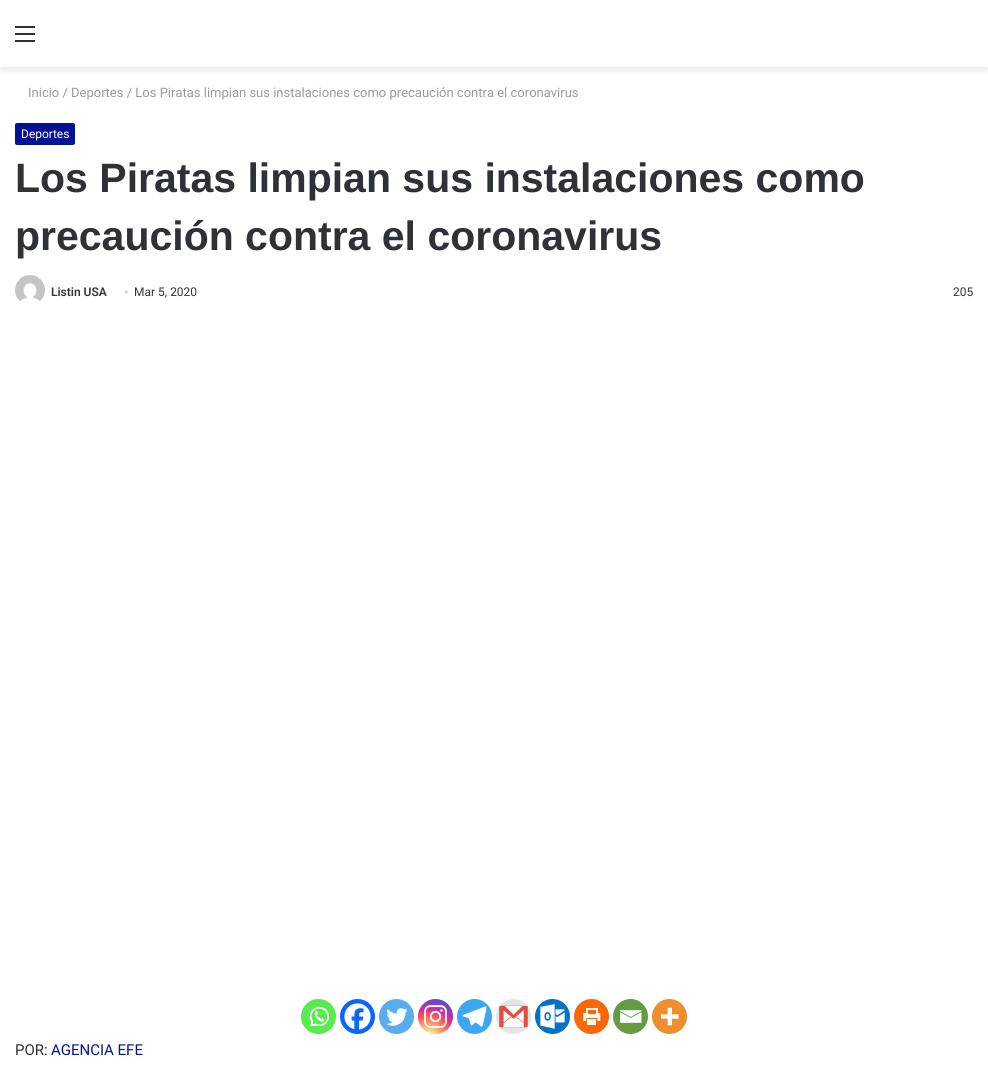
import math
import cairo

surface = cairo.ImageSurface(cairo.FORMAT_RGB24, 988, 1086)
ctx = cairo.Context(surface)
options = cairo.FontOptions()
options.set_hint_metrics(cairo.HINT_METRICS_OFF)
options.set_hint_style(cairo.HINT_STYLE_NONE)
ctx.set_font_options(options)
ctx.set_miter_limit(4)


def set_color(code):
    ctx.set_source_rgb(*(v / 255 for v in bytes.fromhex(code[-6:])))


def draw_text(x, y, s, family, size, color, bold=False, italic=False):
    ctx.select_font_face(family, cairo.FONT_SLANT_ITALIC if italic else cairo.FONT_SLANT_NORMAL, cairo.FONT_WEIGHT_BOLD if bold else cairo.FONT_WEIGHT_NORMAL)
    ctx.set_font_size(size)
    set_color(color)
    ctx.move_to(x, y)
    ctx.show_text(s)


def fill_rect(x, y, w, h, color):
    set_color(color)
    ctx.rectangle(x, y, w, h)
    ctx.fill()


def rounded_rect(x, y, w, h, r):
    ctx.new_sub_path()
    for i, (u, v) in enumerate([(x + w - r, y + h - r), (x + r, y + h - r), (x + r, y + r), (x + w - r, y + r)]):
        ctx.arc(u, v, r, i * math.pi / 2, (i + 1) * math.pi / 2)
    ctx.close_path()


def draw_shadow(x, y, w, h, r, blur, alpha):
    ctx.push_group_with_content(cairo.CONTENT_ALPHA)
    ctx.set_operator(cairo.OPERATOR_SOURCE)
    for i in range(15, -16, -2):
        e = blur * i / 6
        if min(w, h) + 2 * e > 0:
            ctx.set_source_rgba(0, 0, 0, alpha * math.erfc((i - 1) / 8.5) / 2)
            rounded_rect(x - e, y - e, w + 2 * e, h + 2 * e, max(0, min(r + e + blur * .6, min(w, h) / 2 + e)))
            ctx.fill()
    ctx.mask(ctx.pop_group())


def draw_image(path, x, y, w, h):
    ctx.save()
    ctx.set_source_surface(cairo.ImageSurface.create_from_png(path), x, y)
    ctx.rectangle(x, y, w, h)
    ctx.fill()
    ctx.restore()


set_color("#ffffff")
ctx.paint()
ctx.save()
ctx.rectangle(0, 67, 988, 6)
ctx.clip()
set_color("#000000")
draw_shadow(0, 3, 988, 67, 0, 3.5, 0.1)
ctx.restore()
fill_rect(15, 33, 20, 2, "#2c2f34")
fill_rect(15, 26, 20, 2, "#2c2f34")
fill_rect(15, 40, 20, 2, "#2c2f34")
draw_text(28, 97, "Inicio / Deportes / Los Piratas limpian sus instalaciones como precaución contra el coronavirus", "Roboto", 13, "#9a9a9a")
set_color("#041395")
rounded_rect(15, 123, 60, 22, 2)
ctx.fill()
draw_text(21, 138, "Deportes", "Roboto", 12, "#ffffff")
draw_text(15, 192, "Los Piratas limpian sus instalaciones como", "Liberation Sans", 41, "#2e3136", bold=True)
draw_text(15, 250, "precaución contra el coronavirus", "Liberation Sans", 41, "#2e3136", bold=True)
draw_image("assets/img1.png", 15, 275, 30, 27)
draw_text(51, 296, "Listin USA", "Roboto SemiBold", 12, "#353535")
draw_text(124, 296, "•", "Liberation Serif", 12, "#cdcdcd")
draw_text(134, 296, "Mar 5, 2020", "Roboto", 12, "#353535")
draw_text(953, 296, "205", "Roboto", 12, "#353535")
set_color("#57eb4e")
ctx.new_path()
ctx.arc(318.5, 1016.5, 17.5, 0, 2 * math.pi)
ctx.fill()
draw_image("assets/img2.png", 309, 1006, 20, 21)
set_color("#0967fe")
ctx.arc(357.5, 1016.5, 17.5, 0, 2 * math.pi)
ctx.fill()
draw_image("assets/img3.png", 344, 1003, 27, 27)
set_color("#57adee")
ctx.arc(396.5, 1016.5, 17.5, 0, 2 * math.pi)
ctx.fill()
draw_image("assets/img4.png", 386, 1008, 22, 18)
gradient = cairo.RadialGradient(429, 1036, 0, 429, 1036, 45)
gradient.add_color_stop_rgba(0, 0.992, 0.957, 0.596, 1)
gradient.add_color_stop_rgba(0.05, 0.992, 0.957, 0.596, 1)
gradient.add_color_stop_rgba(0.45, 0.992, 0.357, 0.294, 1)
gradient.add_color_stop_rgba(0.6, 0.839, 0.149, 0.627, 1)
gradient.add_color_stop_rgba(0.9, 0.165, 0.361, 0.922, 1)
ctx.set_source(gradient)
ctx.arc(435.5, 1016.5, 17.5, 0, 2 * math.pi)
ctx.fill()
draw_image("assets/img5.png", 424, 1005, 23, 23)
set_color("#3fa6f1")
ctx.arc(474.5, 1016.5, 17.5, 0, 2 * math.pi)
ctx.fill()
draw_image("assets/img6.png", 462, 1006, 25, 21)
set_color("#e5e5e5")
ctx.arc(513.5, 1016.5, 17.5, 0, 2 * math.pi)
ctx.fill()
draw_image("assets/img7.png", 499, 1005, 29, 23)
set_color("#0373c7")
ctx.arc(552.5, 1016.5, 17.5, 0, 2 * math.pi)
ctx.fill()
draw_image("assets/img8.png", 540, 1004, 25, 25)
set_color("#fd6703")
ctx.arc(591.5, 1016.5, 17.5, 0, 2 * math.pi)
ctx.fill()
draw_image("assets/img9.png", 583, 1008, 18, 17)
set_color("#669b41")
ctx.arc(630.5, 1016.5, 17.5, 0, 2 * math.pi)
ctx.fill()
draw_image("assets/img10.png", 620, 1010, 22, 13)
set_color("#ee8f2f")
ctx.arc(669.5, 1016.5, 17.5, 0, 2 * math.pi)
ctx.fill()
draw_image("assets/img11.png", 661, 1007, 18, 19)
draw_text(15, 1055, "POR:", "Roboto", 15, "#2e3136")
draw_text(51, 1055, "AGENCIA EFE", "Roboto", 15, "#041395")
surface.write_to_png("output.png")
